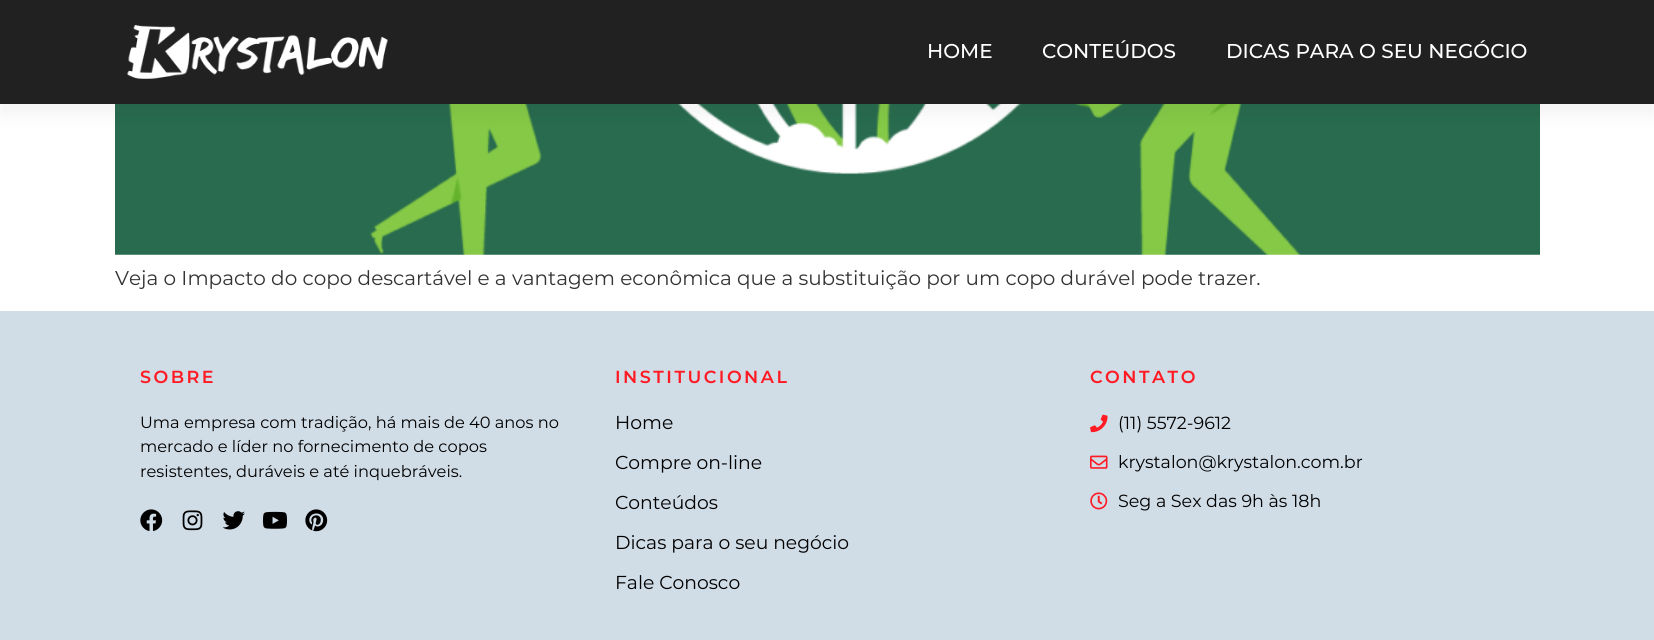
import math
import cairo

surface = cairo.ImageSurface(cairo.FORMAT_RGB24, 1654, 640)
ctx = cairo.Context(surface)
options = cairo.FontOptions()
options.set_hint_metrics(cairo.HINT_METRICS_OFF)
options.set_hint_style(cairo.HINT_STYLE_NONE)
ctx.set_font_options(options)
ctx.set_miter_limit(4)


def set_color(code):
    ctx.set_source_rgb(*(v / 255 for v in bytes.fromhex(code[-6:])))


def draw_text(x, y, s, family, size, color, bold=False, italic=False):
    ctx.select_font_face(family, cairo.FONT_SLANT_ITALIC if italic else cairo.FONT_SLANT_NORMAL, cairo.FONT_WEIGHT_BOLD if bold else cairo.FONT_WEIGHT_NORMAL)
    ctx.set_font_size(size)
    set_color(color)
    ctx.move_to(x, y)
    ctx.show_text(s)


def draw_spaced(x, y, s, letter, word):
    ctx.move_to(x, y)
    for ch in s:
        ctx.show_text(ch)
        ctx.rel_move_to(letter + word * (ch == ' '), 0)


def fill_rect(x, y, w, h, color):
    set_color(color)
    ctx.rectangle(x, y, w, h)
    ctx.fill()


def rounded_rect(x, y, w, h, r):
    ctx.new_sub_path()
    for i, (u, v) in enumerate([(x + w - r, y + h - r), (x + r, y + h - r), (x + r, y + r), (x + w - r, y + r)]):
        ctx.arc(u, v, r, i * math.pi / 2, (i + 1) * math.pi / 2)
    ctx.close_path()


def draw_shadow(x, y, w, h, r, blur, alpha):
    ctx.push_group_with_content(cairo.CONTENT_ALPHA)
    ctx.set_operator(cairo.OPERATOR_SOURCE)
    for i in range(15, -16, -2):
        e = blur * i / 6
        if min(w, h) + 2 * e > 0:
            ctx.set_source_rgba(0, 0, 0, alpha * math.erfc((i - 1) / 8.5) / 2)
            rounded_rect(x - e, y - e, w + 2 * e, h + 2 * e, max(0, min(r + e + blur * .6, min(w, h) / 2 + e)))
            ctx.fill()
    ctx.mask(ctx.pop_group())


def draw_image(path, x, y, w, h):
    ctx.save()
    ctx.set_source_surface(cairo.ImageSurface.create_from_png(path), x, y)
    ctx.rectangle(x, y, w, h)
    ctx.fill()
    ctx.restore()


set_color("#ffffff")
ctx.paint()
draw_image("assets/img2.png", 115, 104, 1425, 151)
set_color("#000000")
draw_shadow(0, 10, 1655, 104, 0, 9.5, 0.05)
fill_rect(0, 0, 1654, 104, "#212121")
draw_image("assets/img1.png", 127, 25, 261, 54)
draw_text(927, 58, "HOME", "Montserrat Medium", 20, "#ffffff")
draw_text(1042, 58, "CONTEÚDOS", "Montserrat Medium", 20, "#ffffff")
draw_text(1226, 58, "DICAS PARA O SEU NEGÓCIO", "Montserrat Medium", 20, "#ffffff")
draw_text(115, 285, "Veja o Impacto do copo descartável e a vantagem econômica que a substituição por um copo durável pode trazer.", "Montserrat", 20, "#333333")
fill_rect(0, 311, 1654, 329, "#d0dce6")
ctx.select_font_face("Montserrat SemiBold")
ctx.set_font_size(17.5)
set_color("#ff1a24")
draw_spaced(140, 383, "SOBRE", 2.5, 0)
draw_text(140, 428, "Uma empresa com tradição, há mais de 40 anos no", "Montserrat", 16.25, "#000000")
draw_text(140, 452, "mercado e líder no fornecimento de copos", "Montserrat", 16.25, "#000000")
draw_text(140, 477, "resistentes, duráveis e até inquebráveis.", "Montserrat", 16.25, "#000000")
draw_image("assets/img3.png", 140, 509, 23, 22)
draw_image("assets/img4.png", 182, 510, 21, 21)
draw_image("assets/img5.png", 222, 511, 23, 19)
draw_image("assets/img6.png", 263, 511, 24, 18)
draw_image("assets/img7.png", 305, 509, 23, 23)
ctx.select_font_face("Montserrat SemiBold")
ctx.set_font_size(17.5)
set_color("#ff1a24")
draw_spaced(615, 383, "INSTITUCIONAL", 2.5, 0)
draw_text(615, 429, "Home", "Montserrat", 18.75, "#000000")
draw_text(615, 469, "Compre on-line", "Montserrat", 18.75, "#000000")
draw_text(615, 509, "Conteúdos", "Montserrat", 18.75, "#000000")
draw_text(615, 549, "Dicas para o seu negócio", "Montserrat", 18.75, "#000000")
draw_text(615, 589, "Fale Conosco", "Montserrat", 18.75, "#000000")
ctx.select_font_face("Montserrat SemiBold")
ctx.set_font_size(17.5)
set_color("#ff1a24")
draw_spaced(1090, 383, "CONTATO", 2.5, 0)
draw_image("assets/img8.png", 1090, 414, 18, 19)
draw_text(1118, 429, "(11) 5572-9612", "Montserrat", 17.5, "#000000")
draw_image("assets/img9.png", 1090, 455, 18, 14)
draw_text(1118, 468, "krystalon@krystalon.com.br", "Montserrat", 17.5, "#000000")
draw_image("assets/img10.png", 1090, 492, 18, 18)
draw_text(1118, 507, "Seg a Sex das 9h às 18h", "Montserrat", 17.5, "#000000")
surface.write_to_png("output.png")
